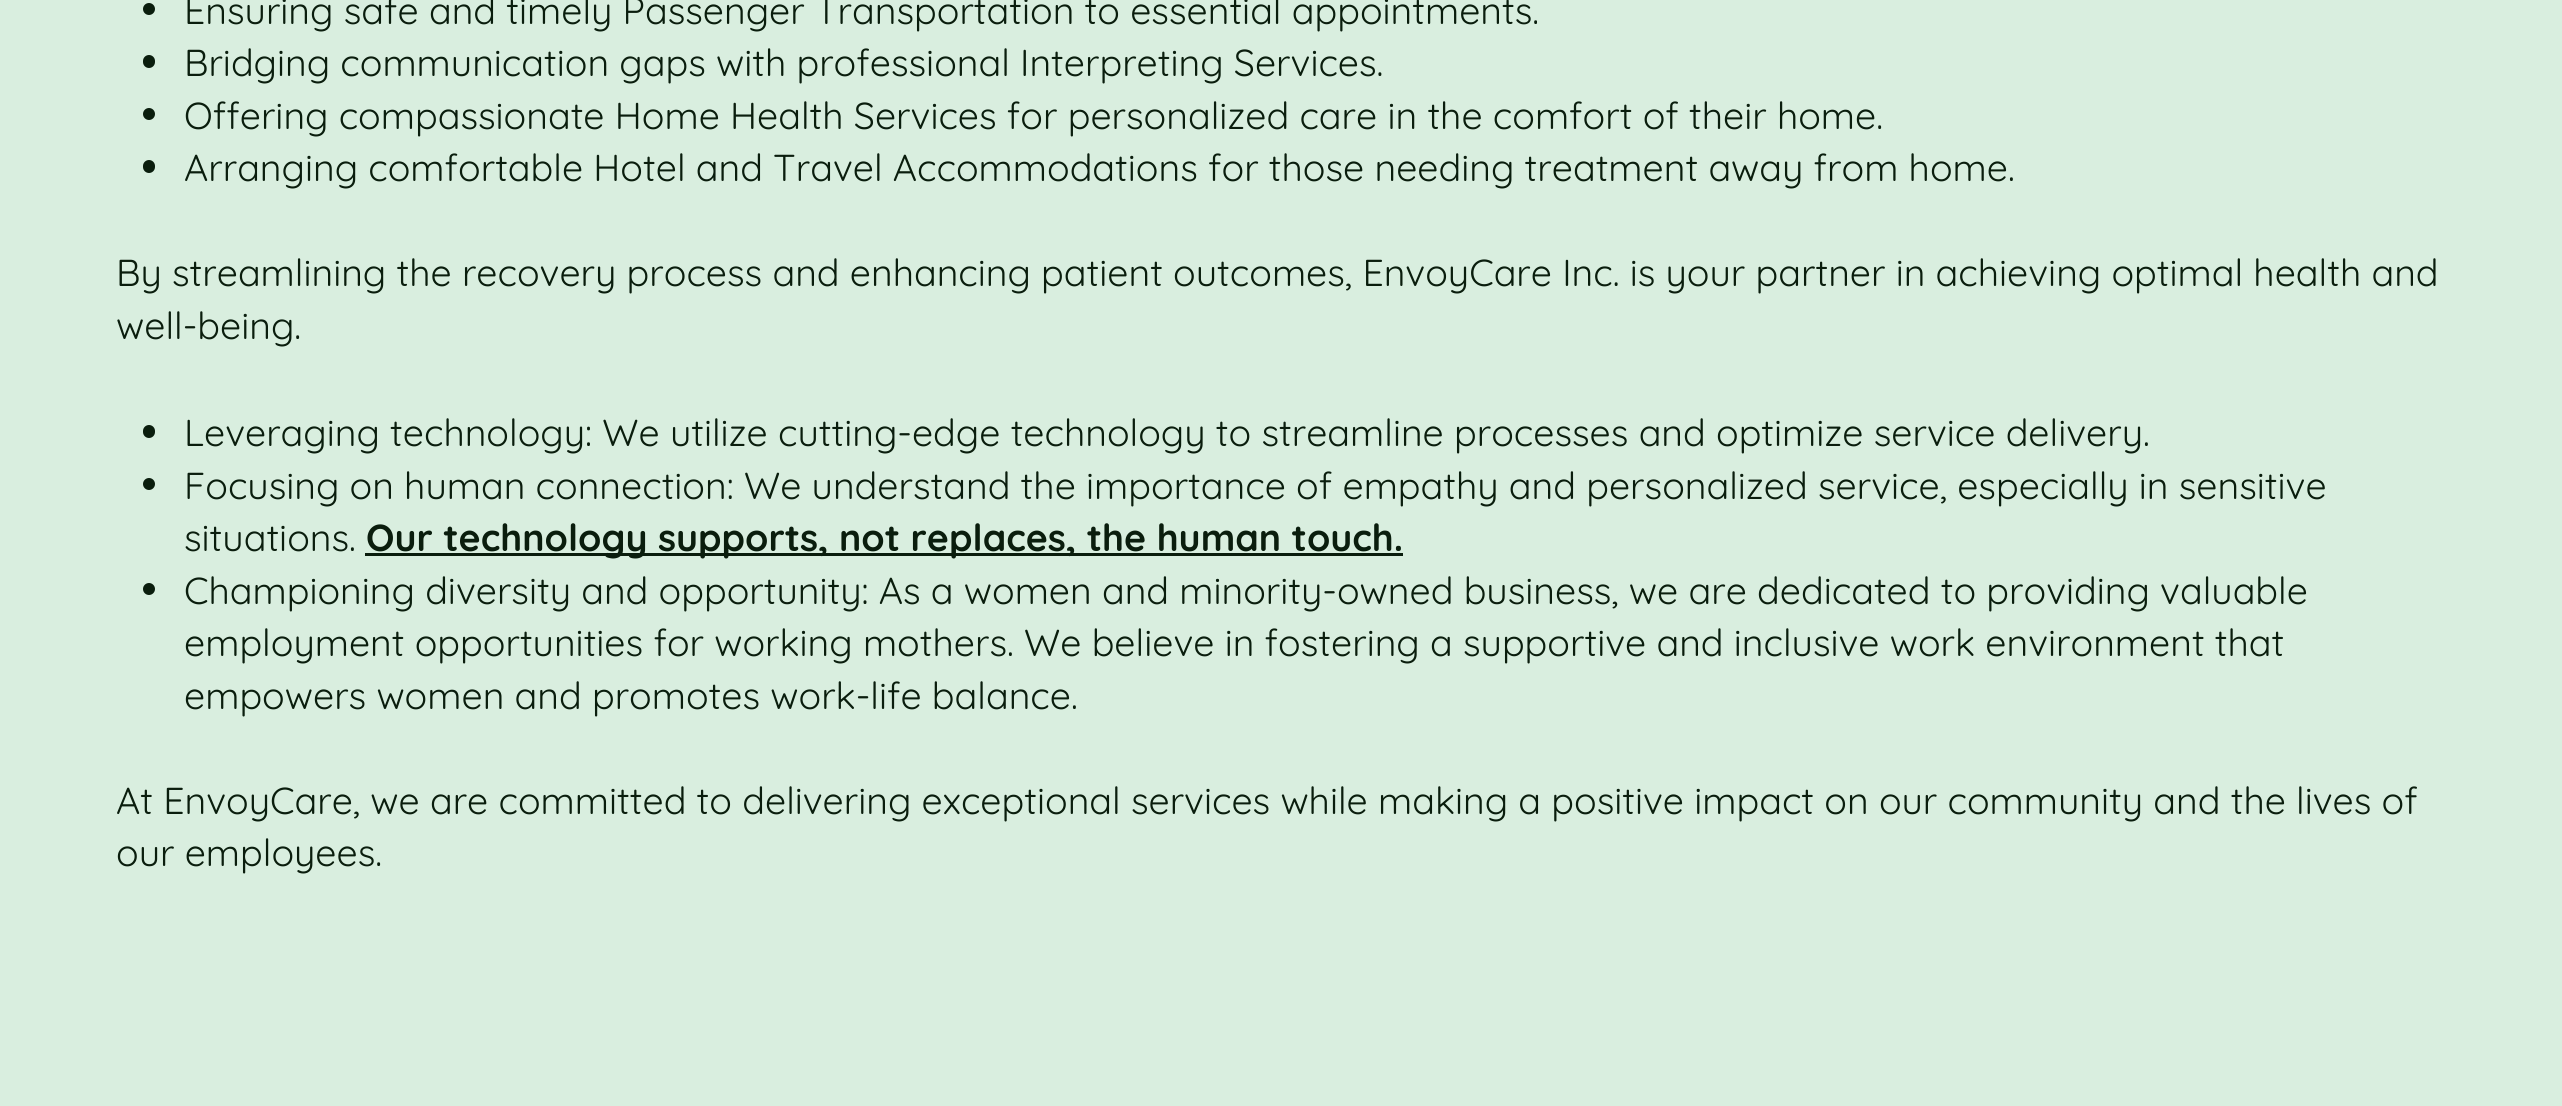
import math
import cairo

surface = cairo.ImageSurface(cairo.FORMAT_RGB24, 2562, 1106)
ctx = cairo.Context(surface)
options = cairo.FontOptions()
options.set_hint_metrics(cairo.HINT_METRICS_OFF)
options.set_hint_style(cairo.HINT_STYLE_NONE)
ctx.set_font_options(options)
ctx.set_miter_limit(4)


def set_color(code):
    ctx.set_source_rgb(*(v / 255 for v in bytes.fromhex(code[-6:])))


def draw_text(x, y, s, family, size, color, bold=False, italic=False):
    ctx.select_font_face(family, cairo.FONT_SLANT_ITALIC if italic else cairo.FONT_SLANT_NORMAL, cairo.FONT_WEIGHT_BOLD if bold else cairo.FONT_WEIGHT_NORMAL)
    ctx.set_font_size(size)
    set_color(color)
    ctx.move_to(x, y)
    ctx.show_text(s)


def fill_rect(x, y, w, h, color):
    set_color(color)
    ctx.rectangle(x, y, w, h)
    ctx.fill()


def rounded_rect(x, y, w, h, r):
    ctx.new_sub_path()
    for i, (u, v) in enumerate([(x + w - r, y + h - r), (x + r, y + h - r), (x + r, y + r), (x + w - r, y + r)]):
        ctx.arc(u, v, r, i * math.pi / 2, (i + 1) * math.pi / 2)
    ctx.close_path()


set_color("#d9eedf")
ctx.paint()
set_color("#0a1d0d")
ctx.arc(149, 9, 6, 0, 2 * math.pi)
ctx.fill()
draw_text(184, 24, "Ensuring safe and timely Passenger Transportation to essential appointments.", "Quicksand", 37.5, "#0a1d0d")
rounded_rect(143, 55, 12, 13, 6)
ctx.fill()
draw_text(184, 76, "Bridging communication gaps with professional Interpreting Services.", "Quicksand", 37.5, "#0a1d0d")
ctx.new_path()
ctx.arc(149, 114, 6, 0, 2 * math.pi)
ctx.fill()
draw_text(184, 129, "Offering compassionate Home Health Services for personalized care in the comfort of their home.", "Quicksand", 37.5, "#0a1d0d")
rounded_rect(143, 160, 12, 13, 6)
ctx.fill()
draw_text(184, 181, "Arranging comfortable Hotel and Travel Accommodations for those needing treatment away from home.", "Quicksand", 37.5, "#0a1d0d")
draw_text(116, 286, "By streamlining the recovery process and enhancing patient outcomes, EnvoyCare Inc. is your partner in achieving optimal health and", "Quicksand", 37.5, "#0a1d0d")
draw_text(116, 339, "well-being.", "Quicksand", 37.5, "#0a1d0d")
rounded_rect(143, 425, 12, 13, 6)
ctx.fill()
draw_text(184, 446, "Leveraging technology: We utilize cutting-edge technology to streamline processes and optimize service delivery.", "Quicksand", 37.5, "#0a1d0d")
ctx.new_path()
ctx.arc(149, 484, 6, 0, 2 * math.pi)
ctx.fill()
draw_text(184, 499, "Focusing on human connection: We understand the importance of empathy and personalized service, especially in sensitive", "Quicksand", 37.5, "#0a1d0d")
draw_text(184, 551, "situations.", "Quicksand", 37.5, "#0a1d0d")
fill_rect(365, 553, 1038, 3, "#0a1d0d")
draw_text(366, 551, "Our technology supports, not replaces, the human touch.", "Quicksand", 37.5, "#0a1d0d", bold=True)
ctx.new_path()
ctx.arc(149, 589, 6, 0, 2 * math.pi)
ctx.fill()
draw_text(184, 604, "Championing diversity and opportunity: As a women and minority-owned business, we are dedicated to providing valuable", "Quicksand", 37.5, "#0a1d0d")
draw_text(184, 656, "employment opportunities for working mothers. We believe in fostering a supportive and inclusive work environment that", "Quicksand", 37.5, "#0a1d0d")
draw_text(184, 709, "empowers women and promotes work-life balance.", "Quicksand", 37.5, "#0a1d0d")
draw_text(116, 814, "At EnvoyCare, we are committed to delivering exceptional services while making a positive impact on our community and the lives of", "Quicksand", 37.5, "#0a1d0d")
draw_text(116, 866, "our employees.", "Quicksand", 37.5, "#0a1d0d")
surface.write_to_png("output.png")
